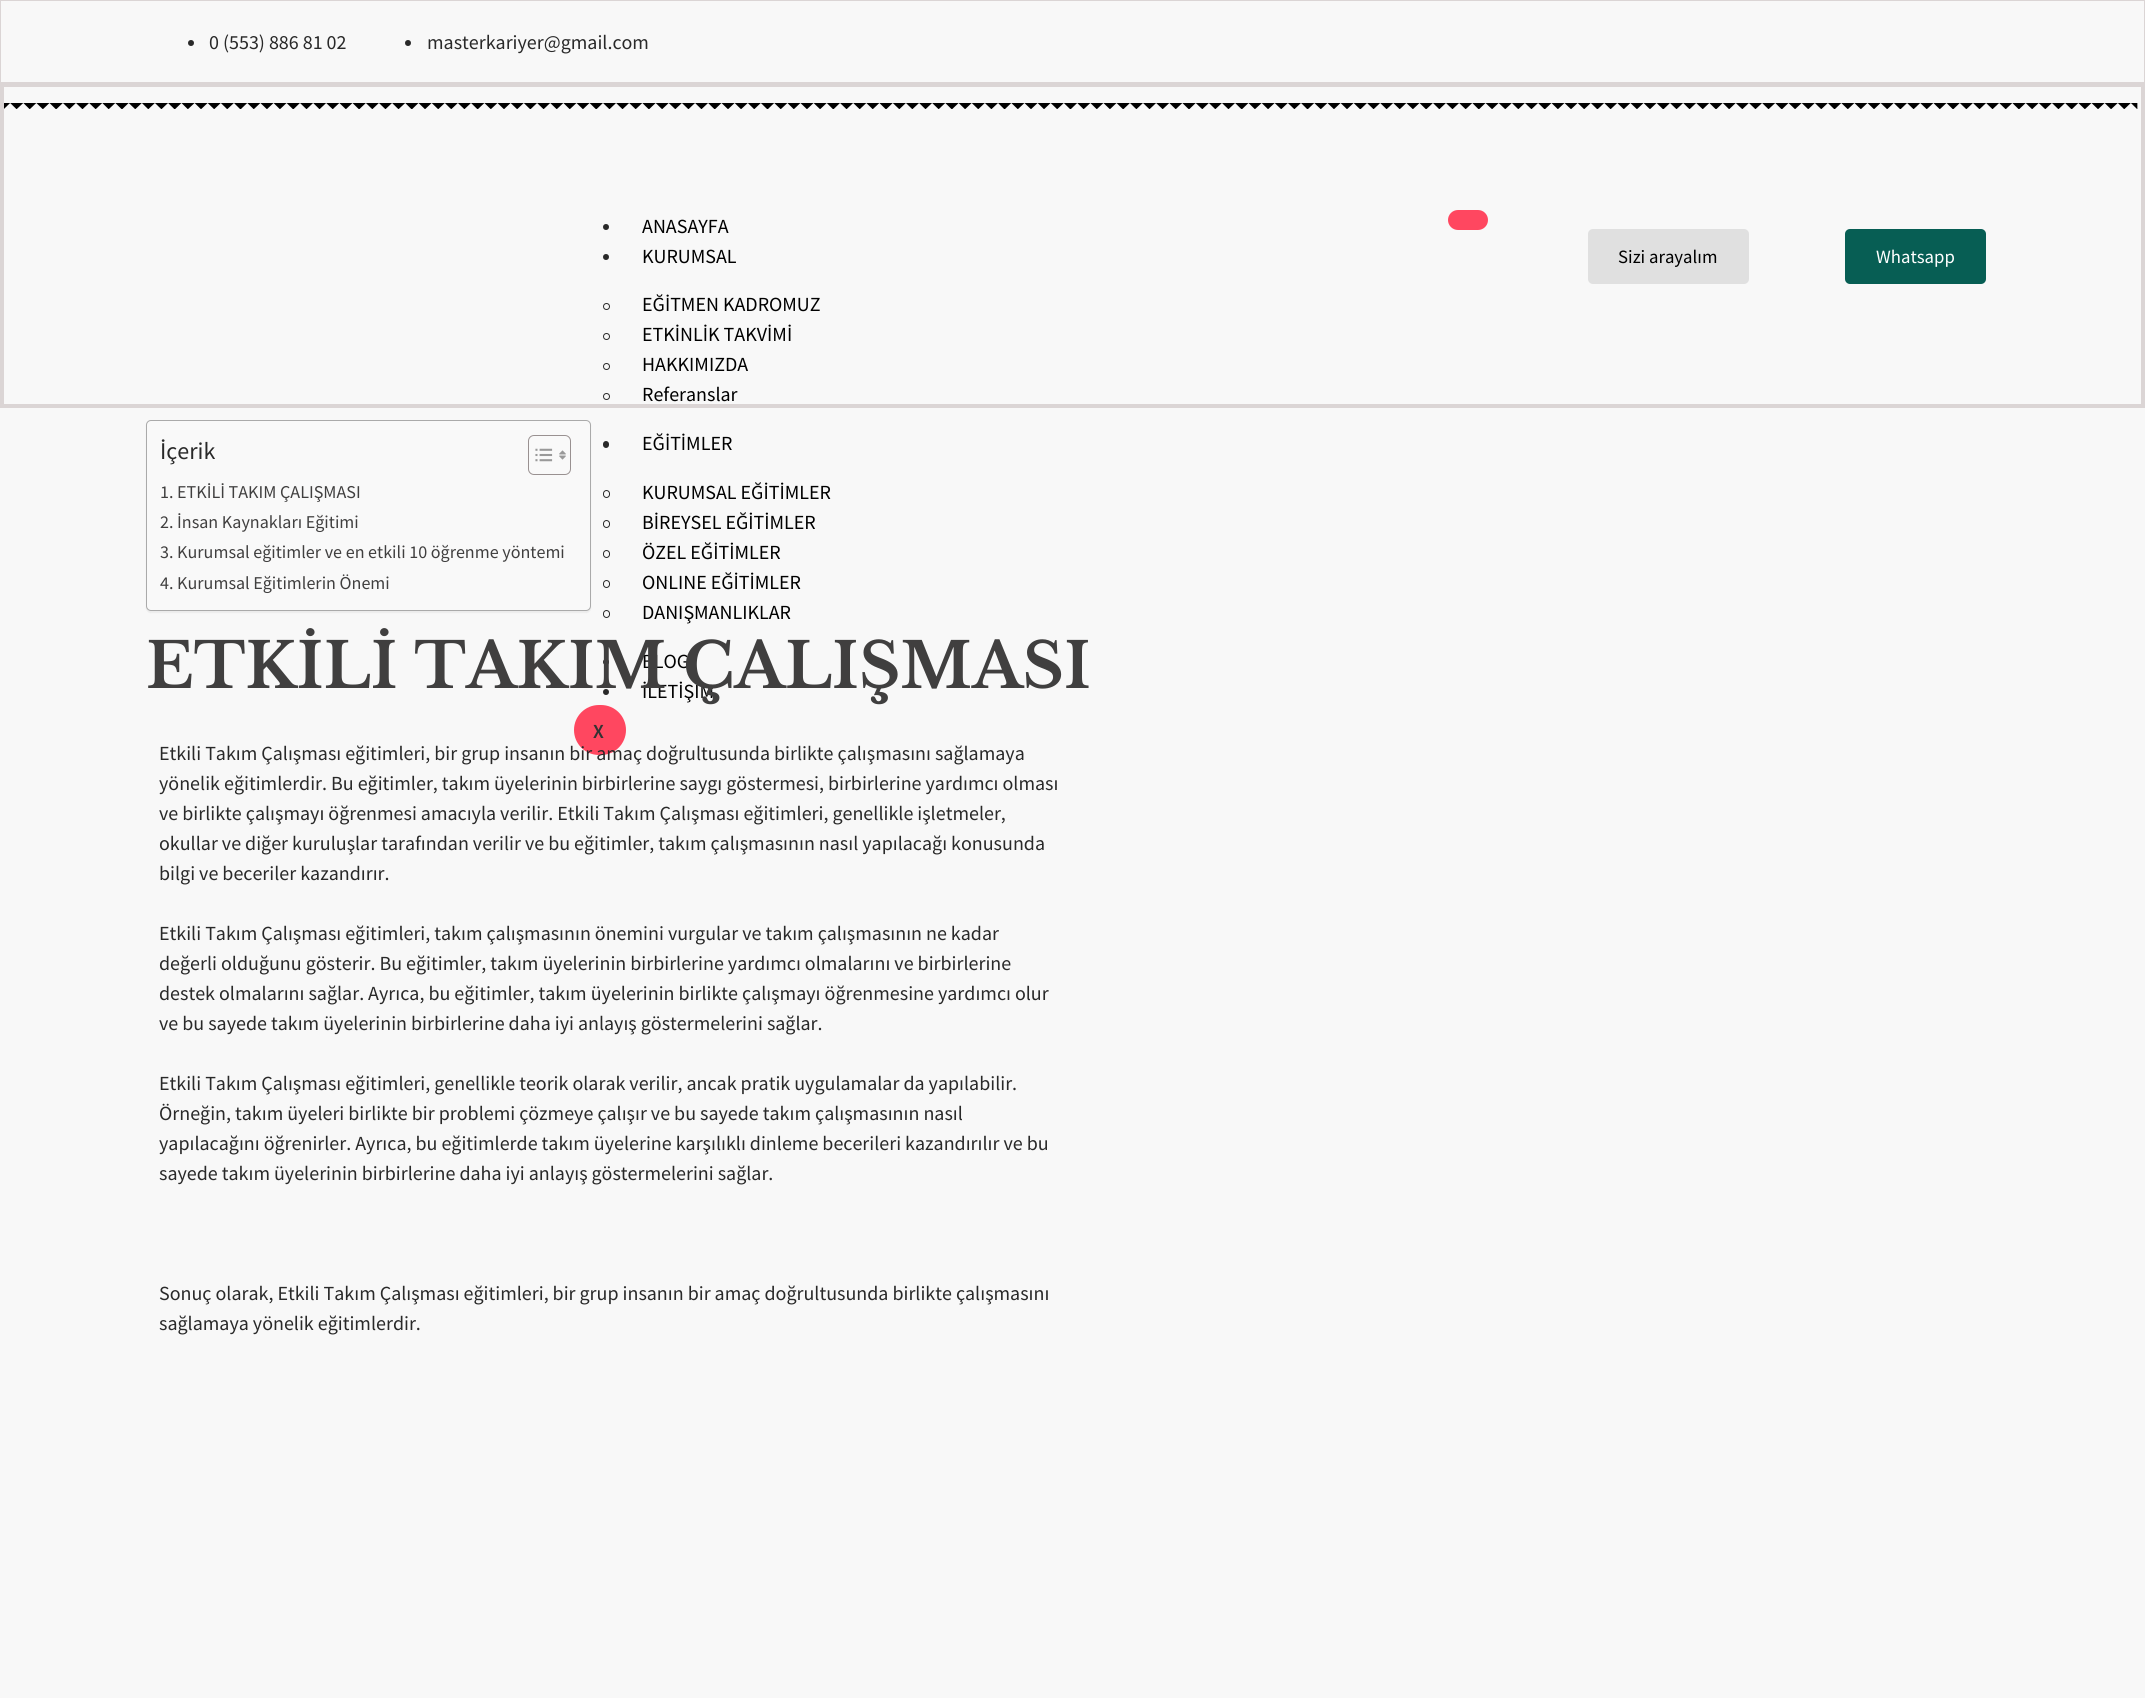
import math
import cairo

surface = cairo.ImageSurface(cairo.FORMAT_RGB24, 2145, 1698)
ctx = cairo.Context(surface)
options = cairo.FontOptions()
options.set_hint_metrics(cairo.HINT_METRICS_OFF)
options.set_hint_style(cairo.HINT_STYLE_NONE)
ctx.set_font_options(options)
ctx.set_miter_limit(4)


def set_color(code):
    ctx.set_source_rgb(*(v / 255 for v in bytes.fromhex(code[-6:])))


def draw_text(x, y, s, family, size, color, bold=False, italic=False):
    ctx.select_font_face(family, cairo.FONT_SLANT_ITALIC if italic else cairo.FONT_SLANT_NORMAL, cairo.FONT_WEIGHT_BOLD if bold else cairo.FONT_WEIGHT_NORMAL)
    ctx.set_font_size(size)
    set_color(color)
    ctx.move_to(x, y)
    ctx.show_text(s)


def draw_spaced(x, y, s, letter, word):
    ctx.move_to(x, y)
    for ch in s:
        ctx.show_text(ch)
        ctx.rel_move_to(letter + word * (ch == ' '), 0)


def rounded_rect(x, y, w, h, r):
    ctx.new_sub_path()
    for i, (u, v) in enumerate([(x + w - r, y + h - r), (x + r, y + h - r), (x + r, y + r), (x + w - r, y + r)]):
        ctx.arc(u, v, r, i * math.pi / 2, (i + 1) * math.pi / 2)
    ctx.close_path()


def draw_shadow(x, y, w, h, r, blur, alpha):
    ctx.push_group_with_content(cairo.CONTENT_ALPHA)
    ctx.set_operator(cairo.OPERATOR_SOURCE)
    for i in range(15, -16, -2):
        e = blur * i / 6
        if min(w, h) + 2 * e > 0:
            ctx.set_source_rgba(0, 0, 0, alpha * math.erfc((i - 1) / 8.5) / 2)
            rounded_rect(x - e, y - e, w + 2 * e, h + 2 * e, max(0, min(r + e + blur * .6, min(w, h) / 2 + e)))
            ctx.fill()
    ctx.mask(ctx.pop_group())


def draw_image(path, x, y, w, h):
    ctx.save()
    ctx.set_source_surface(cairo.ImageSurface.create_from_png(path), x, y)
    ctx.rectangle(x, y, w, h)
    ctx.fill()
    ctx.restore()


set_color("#f8f8f8")
ctx.paint()
ctx.rectangle(0.5, 0.5, 2144, 82)
set_color("#dbd5d5")
ctx.set_line_width(1)
ctx.stroke()
set_color("#292929")
ctx.arc(191, 43, 3, 0, 2 * math.pi)
ctx.fill()
draw_text(209, 49, "0 (553) 886 81 02", "Source Sans Pro", 20, "#292929")
ctx.new_path()
ctx.arc(408, 43, 3, 0, 2 * math.pi)
ctx.fill()
draw_text(427, 49, "masterkariyer@gmail.com", "Source Sans Pro", 20, "#292929")
ctx.rectangle(2, 85, 2141, 321)
set_color("#dbd5d5")
ctx.set_line_width(4)
ctx.stroke()
draw_image("assets/img1.png", 4, 103, 2134, 6)
set_color("#292929")
ctx.arc(606, 227, 3, 0, 2 * math.pi)
ctx.fill()
draw_text(642, 233, "ANASAYFA", "Source Sans Pro", 20, "#000000")
set_color("#292929")
ctx.new_path()
ctx.arc(606, 257, 3, 0, 2 * math.pi)
ctx.fill()
draw_text(642, 263, "KURUMSAL", "Source Sans Pro", 20, "#000000")
ctx.new_path()
ctx.arc(606.5, 306.5, 3, 0, 2 * math.pi)
set_color("#292929")
ctx.set_line_width(1)
ctx.stroke()
draw_text(642, 311, "EĞİTMEN KADROMUZ", "Source Sans Pro", 20, "#000000")
ctx.new_path()
ctx.arc(606.5, 336.5, 3, 0, 2 * math.pi)
set_color("#292929")
ctx.stroke()
draw_text(642, 341, "ETKİNLİK TAKVİMİ", "Source Sans Pro", 20, "#000000")
ctx.new_path()
ctx.arc(606.5, 366.5, 3, 0, 2 * math.pi)
set_color("#292929")
ctx.stroke()
draw_text(642, 371, "HAKKIMIZDA", "Source Sans Pro", 20, "#000000")
ctx.new_path()
ctx.arc(606.5, 396.5, 3, 0, 2 * math.pi)
set_color("#292929")
ctx.stroke()
draw_text(642, 401, "Referanslar", "Source Sans Pro", 20, "#000000")
set_color("#292929")
rounded_rect(603, 441, 6, 7, 3)
ctx.fill()
draw_text(642, 450, "EĞİTİMLER", "Source Sans Pro", 20, "#000000")
rounded_rect(603.5, 490.5, 6, 7, 3)
set_color("#292929")
ctx.stroke()
draw_text(642, 499, "KURUMSAL EĞİTİMLER", "Source Sans Pro", 20, "#000000")
rounded_rect(603.5, 520.5, 6, 7, 3)
set_color("#292929")
ctx.stroke()
draw_text(642, 529, "BİREYSEL EĞİTİMLER", "Source Sans Pro", 20, "#000000")
rounded_rect(603.5, 550.5, 6, 7, 3)
set_color("#292929")
ctx.stroke()
draw_text(642, 559, "ÖZEL EĞİTİMLER", "Source Sans Pro", 20, "#000000")
rounded_rect(603.5, 580.5, 6, 7, 3)
set_color("#292929")
ctx.stroke()
draw_text(642, 589, "ONLINE EĞİTİMLER", "Source Sans Pro", 20, "#000000")
rounded_rect(603.5, 610.5, 6, 7, 3)
set_color("#292929")
ctx.stroke()
draw_text(642, 619, "DANIŞMANLIKLAR", "Source Sans Pro", 20, "#000000")
set_color("#292929")
ctx.new_path()
ctx.arc(606, 662, 3, 0, 2 * math.pi)
ctx.fill()
draw_text(642, 668, "BLOG", "Source Sans Pro", 20, "#000000")
set_color("#292929")
ctx.new_path()
ctx.arc(606, 692, 3, 0, 2 * math.pi)
ctx.fill()
draw_text(642, 698, "İLETİŞİM", "Source Sans Pro", 20, "#000000")
set_color("#ff4760")
rounded_rect(574, 705, 52, 50, 25)
ctx.fill()
ctx.select_font_face("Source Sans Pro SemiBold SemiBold")
set_color("#333333")
draw_spaced(593, 738, "X", 2, 0)
set_color("#ff4760")
rounded_rect(1448, 210, 40, 20, 10)
ctx.fill()
set_color("#e0e0e0")
rounded_rect(1588, 229, 161, 55, 5)
ctx.fill()
draw_text(1618, 263, "Sizi arayalım", "Source Sans Pro", 18.75, "#000000")
set_color("#075e54")
rounded_rect(1845, 229, 141, 55, 5)
ctx.fill()
draw_text(1876, 263, "Whatsapp", "Source Sans Pro", 18.75, "#ffffff")
set_color("#000000")
draw_shadow(146, 421, 445, 192, 5, 0.5, 0.05)
set_color("#f9f9f9")
rounded_rect(146.5, 420.5, 444, 190, 4.5)
ctx.fill_preserve()
set_color("#aaaaaa")
ctx.stroke()
draw_text(160, 459, "İçerik", "Source Sans Pro", 24, "#292929")
rounded_rect(528.5, 435.5, 42, 39, 5.5)
set_color("#999191")
ctx.stroke()
draw_image("assets/img2.png", 535, 448, 18, 14)
draw_image("assets/img3.png", 559, 450, 7, 10)
draw_text(160, 498, "1. ETKİLİ TAKIM ÇALIŞMASI", "Source Sans Pro", 18.05, "#403f3f")
draw_text(160, 528, "2. İnsan Kaynakları Eğitimi", "Source Sans Pro", 18.05, "#403f3f")
draw_text(160, 558, "3. Kurumsal eğitimler ve en etkili 10 öğrenme yöntemi", "Source Sans Pro", 18.05, "#403f3f")
draw_text(160, 589, "4. Kurumsal Eğitimlerin Önemi", "Source Sans Pro", 18.05, "#403f3f")
draw_text(146, 688, "ETKİLİ TAKIM ÇALIŞMASI", "Libre Baskerville", 62.5, "#403f3f", bold=True)
draw_text(159, 760, "Etkili Takım Çalışması eğitimleri, bir grup insanın bir amaç doğrultusunda birlikte çalışmasını sağlamaya", "Source Sans Pro", 20, "#292929")
draw_text(159, 790, "yönelik eğitimlerdir. Bu eğitimler, takım üyelerinin birbirlerine saygı göstermesi, birbirlerine yardımcı olması", "Source Sans Pro", 20, "#292929")
draw_text(159, 820, "ve birlikte çalışmayı öğrenmesi amacıyla verilir. Etkili Takım Çalışması eğitimleri, genellikle işletmeler,", "Source Sans Pro", 20, "#292929")
draw_text(159, 850, "okullar ve diğer kuruluşlar tarafından verilir ve bu eğitimler, takım çalışmasının nasıl yapılacağı konusunda", "Source Sans Pro", 20, "#292929")
draw_text(159, 880, "bilgi ve beceriler kazandırır.", "Source Sans Pro", 20, "#292929")
draw_text(159, 940, "Etkili Takım Çalışması eğitimleri, takım çalışmasının önemini vurgular ve takım çalışmasının ne kadar", "Source Sans Pro", 20, "#292929")
draw_text(159, 970, "değerli olduğunu gösterir. Bu eğitimler, takım üyelerinin birbirlerine yardımcı olmalarını ve birbirlerine", "Source Sans Pro", 20, "#292929")
draw_text(159, 1000, "destek olmalarını sağlar. Ayrıca, bu eğitimler, takım üyelerinin birlikte çalışmayı öğrenmesine yardımcı olur", "Source Sans Pro", 20, "#292929")
draw_text(159, 1030, "ve bu sayede takım üyelerinin birbirlerine daha iyi anlayış göstermelerini sağlar.", "Source Sans Pro", 20, "#292929")
draw_text(159, 1090, "Etkili Takım Çalışması eğitimleri, genellikle teorik olarak verilir, ancak pratik uygulamalar da yapılabilir.", "Source Sans Pro", 20, "#292929")
draw_text(159, 1120, "Örneğin, takım üyeleri birlikte bir problemi çözmeye çalışır ve bu sayede takım çalışmasının nasıl", "Source Sans Pro", 20, "#292929")
draw_text(159, 1150, "yapılacağını öğrenirler. Ayrıca, bu eğitimlerde takım üyelerine karşılıklı dinleme becerileri kazandırılır ve bu", "Source Sans Pro", 20, "#292929")
draw_text(159, 1180, "sayede takım üyelerinin birbirlerine daha iyi anlayış göstermelerini sağlar.", "Source Sans Pro", 20, "#292929")
draw_text(159, 1300, "Sonuç olarak, Etkili Takım Çalışması eğitimleri, bir grup insanın bir amaç doğrultusunda birlikte çalışmasını", "Source Sans Pro", 20, "#292929")
draw_text(159, 1330, "sağlamaya yönelik eğitimlerdir.", "Source Sans Pro", 20, "#292929")
surface.write_to_png("output.png")
